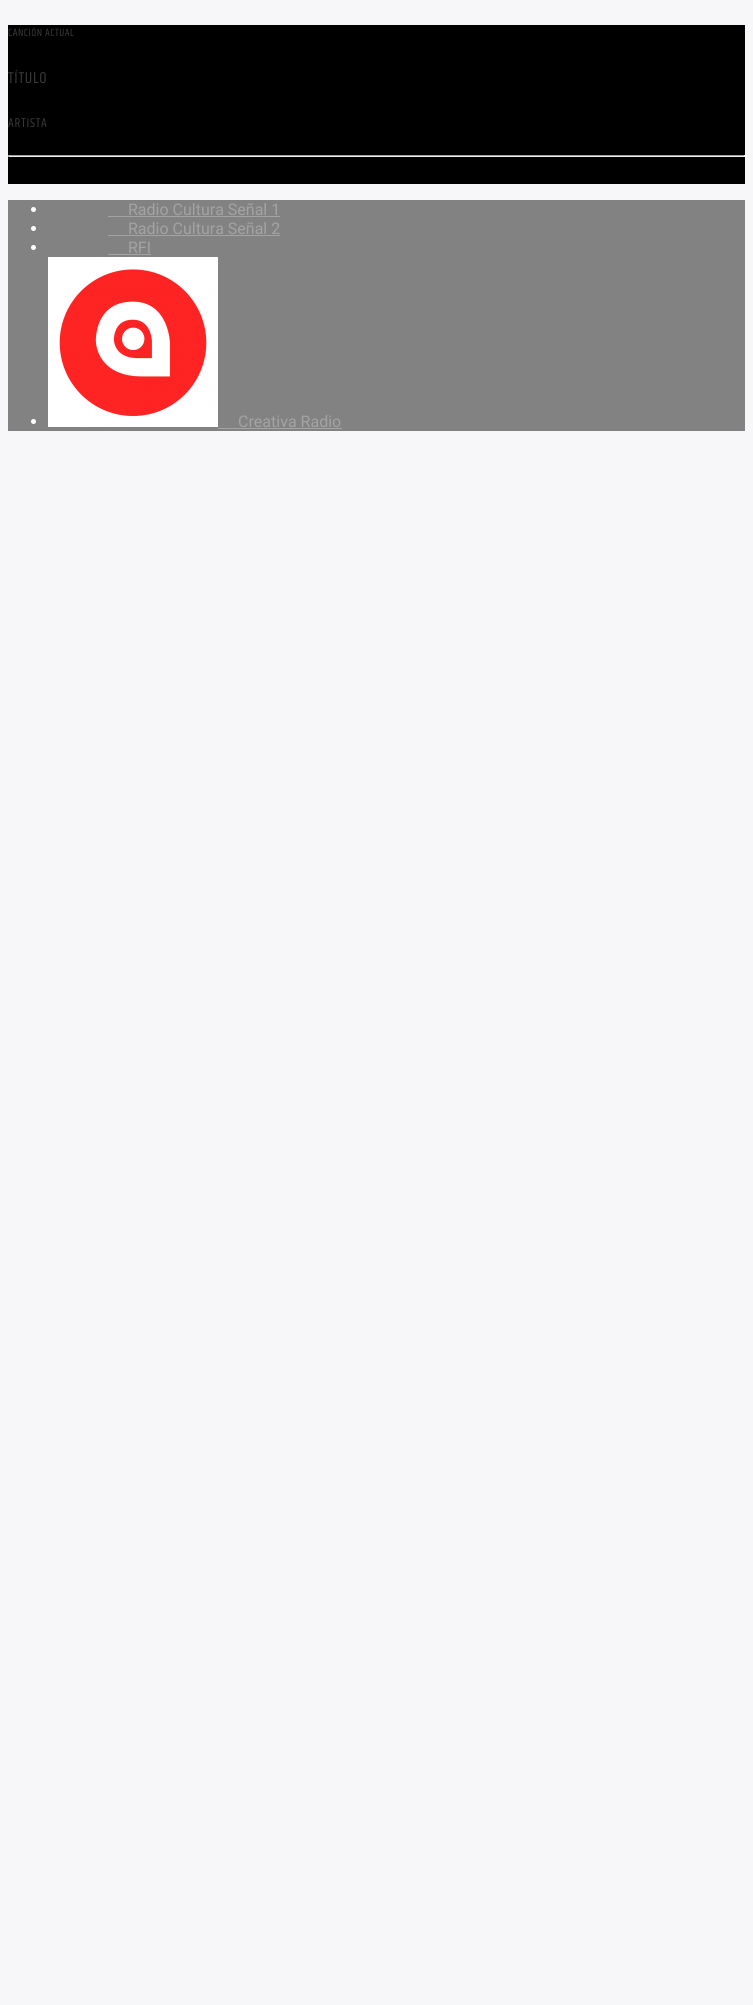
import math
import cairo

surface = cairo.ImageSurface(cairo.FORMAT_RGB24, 753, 2005)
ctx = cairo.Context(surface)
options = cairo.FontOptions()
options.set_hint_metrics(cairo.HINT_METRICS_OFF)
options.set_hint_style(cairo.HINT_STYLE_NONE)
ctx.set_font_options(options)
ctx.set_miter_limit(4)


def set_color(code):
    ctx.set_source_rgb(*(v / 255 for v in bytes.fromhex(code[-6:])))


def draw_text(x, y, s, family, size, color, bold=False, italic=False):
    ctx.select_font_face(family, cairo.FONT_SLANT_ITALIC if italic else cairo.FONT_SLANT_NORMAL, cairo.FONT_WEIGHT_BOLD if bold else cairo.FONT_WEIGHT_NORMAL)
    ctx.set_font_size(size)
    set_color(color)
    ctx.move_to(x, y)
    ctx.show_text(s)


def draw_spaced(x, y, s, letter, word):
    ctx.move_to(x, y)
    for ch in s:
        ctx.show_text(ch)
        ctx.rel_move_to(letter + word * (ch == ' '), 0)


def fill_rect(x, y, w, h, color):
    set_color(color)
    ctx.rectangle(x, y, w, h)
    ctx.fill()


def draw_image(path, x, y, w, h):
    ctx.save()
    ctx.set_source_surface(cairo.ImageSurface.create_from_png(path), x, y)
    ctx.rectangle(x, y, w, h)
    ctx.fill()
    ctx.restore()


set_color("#f7f7f9")
ctx.paint()
fill_rect(8, 25, 737, 159, "#000000")
ctx.select_font_face("Khand")
ctx.set_font_size(10.75)
set_color("#3b3b3b")
draw_spaced(8, 36, "CANCIÓN ACTUAL", 0.5, 0)
ctx.set_font_size(16)
draw_spaced(8, 83, "TÍTULO", 0.75, 0)
ctx.set_font_size(13)
draw_spaced(8, 127, "ARTISTA", 0.75, 0)
fill_rect(8, 155, 737, 1, "#9f9f9f")
fill_rect(744, 155, 1, 2, "#eeeeee")
fill_rect(8, 156, 737, 1, "#eeeeee")
fill_rect(8, 155, 1, 2, "#9f9f9f")
fill_rect(8, 200, 737, 231, "#828282")
set_color("#ffffff")
ctx.new_path()
ctx.arc(33.5, 209.5, 2.5, 0, 2 * math.pi)
ctx.fill()
draw_text(128, 215, "Radio Cultura Señal 1", "Roboto", 16, "#a3a3a3")
fill_rect(108, 216, 172, 1, "#a3a3a3")
set_color("#ffffff")
ctx.new_path()
ctx.arc(33.5, 228.5, 2.5, 0, 2 * math.pi)
ctx.fill()
draw_text(128, 234, "Radio Cultura Señal 2", "Roboto", 16, "#a3a3a3")
fill_rect(108, 235, 172, 1, "#a3a3a3")
set_color("#ffffff")
ctx.new_path()
ctx.arc(33.5, 247.5, 2.5, 0, 2 * math.pi)
ctx.fill()
draw_text(128, 253, "RFI", "Roboto", 16, "#a3a3a3")
fill_rect(108, 254, 43, 1, "#a3a3a3")
set_color("#ffffff")
ctx.new_path()
ctx.arc(33.5, 421.5, 2.5, 0, 2 * math.pi)
ctx.fill()
draw_image("assets/img1.png", 48, 257, 170, 170)
draw_text(238, 427, "Creativa Radio", "Roboto", 16, "#a3a3a3")
fill_rect(218, 428, 124, 1, "#a3a3a3")
surface.write_to_png("output.png")
